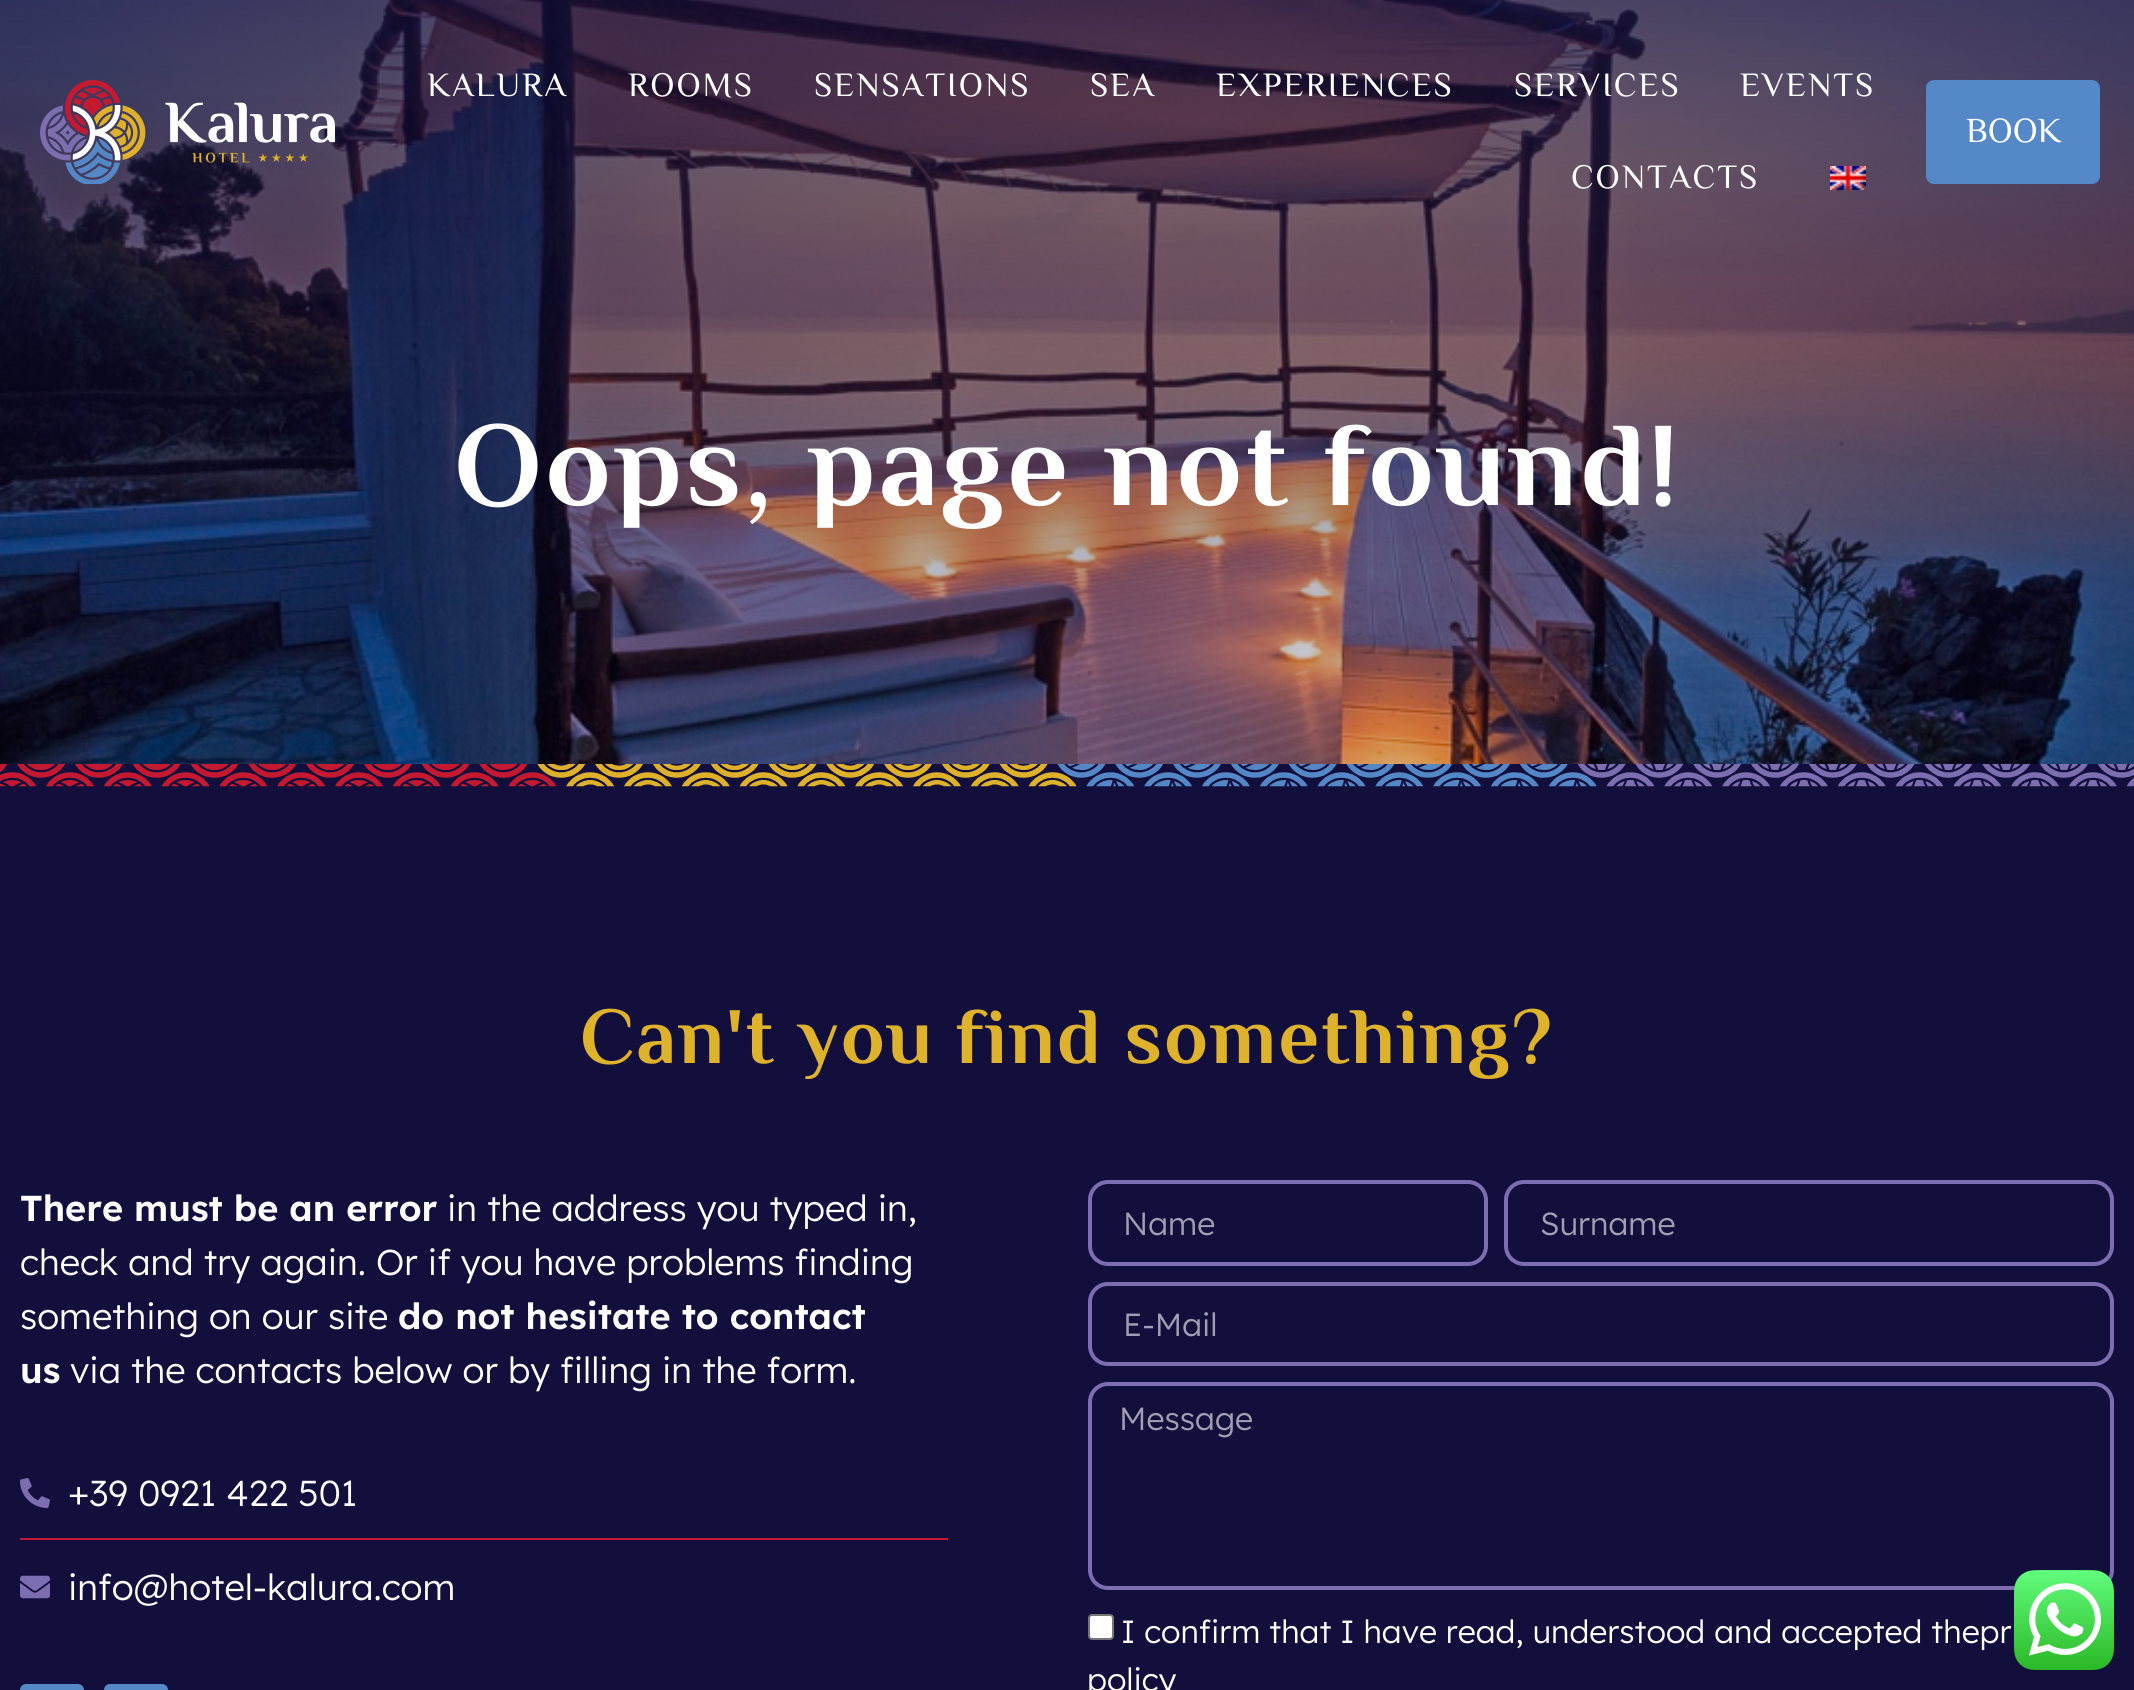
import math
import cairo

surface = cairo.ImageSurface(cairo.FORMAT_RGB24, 2134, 1690)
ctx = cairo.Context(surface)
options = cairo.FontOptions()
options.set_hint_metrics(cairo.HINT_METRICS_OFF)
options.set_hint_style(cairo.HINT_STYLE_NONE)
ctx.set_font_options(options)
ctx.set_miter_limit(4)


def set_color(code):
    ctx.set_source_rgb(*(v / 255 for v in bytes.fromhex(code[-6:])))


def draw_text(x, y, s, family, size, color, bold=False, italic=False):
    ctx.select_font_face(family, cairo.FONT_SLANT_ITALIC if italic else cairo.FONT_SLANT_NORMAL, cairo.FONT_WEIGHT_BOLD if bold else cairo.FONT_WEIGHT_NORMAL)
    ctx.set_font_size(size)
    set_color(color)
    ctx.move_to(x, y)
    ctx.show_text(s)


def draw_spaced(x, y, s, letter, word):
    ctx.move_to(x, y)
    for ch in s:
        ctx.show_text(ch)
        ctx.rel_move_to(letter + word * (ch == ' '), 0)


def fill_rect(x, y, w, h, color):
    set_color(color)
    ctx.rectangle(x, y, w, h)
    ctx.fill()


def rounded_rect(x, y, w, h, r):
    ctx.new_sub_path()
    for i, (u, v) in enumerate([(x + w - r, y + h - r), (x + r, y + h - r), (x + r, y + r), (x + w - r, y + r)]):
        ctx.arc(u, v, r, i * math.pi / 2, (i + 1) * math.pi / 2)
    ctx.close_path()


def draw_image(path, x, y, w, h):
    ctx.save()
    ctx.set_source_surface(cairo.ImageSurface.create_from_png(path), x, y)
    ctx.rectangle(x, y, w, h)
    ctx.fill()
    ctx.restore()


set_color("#130f3d")
ctx.paint()
draw_image("assets/img1.png", 0, 0, 2134, 764)
draw_image("assets/img2.png", 40, 80, 295, 104)
ctx.select_font_face("Philosopher")
ctx.set_font_size(34)
set_color("#ffffff")
draw_spaced(427, 96, "KALURA", 2, 0)
draw_spaced(628, 96, "ROOMS", 2, 0)
draw_spaced(814, 96, "SENSATIONS", 2, 0)
draw_spaced(1090, 96, "SEA", 2, 0)
draw_spaced(1216, 96, "EXPERIENCES", 2, 0)
draw_spaced(1514, 96, "SERVICES", 2, 0)
draw_spaced(1740, 96, "EVENTS", 2, 0)
draw_spaced(1571, 188, "CONTACTS", 2, 0)
draw_image("assets/img3.png", 1830, 166, 36, 24)
set_color("#5488c7")
rounded_rect(1926, 80, 174, 104, 8)
ctx.fill()
draw_text(1966, 142, "BOOK", "Philosopher", 35, "#ffffff")
ctx.select_font_face("Philosopher", cairo.FONT_SLANT_NORMAL, cairo.FONT_WEIGHT_BOLD)
ctx.set_font_size(120)
draw_spaced(454, 505, "Oops, page not found!", 3, 0)
draw_image("assets/img4.png", 0, 764, 2134, 23)
ctx.set_font_size(80)
set_color("#dfb22b")
draw_spaced(580, 1063, "Can't you find something?", 2, 0)
draw_text(20, 1221, "There must be an error", "Lexend SemiBold", 36, "#ffffff")
draw_text(447, 1221, "in the address you typed in,", "Lexend Light", 36, "#ffffff")
draw_text(20, 1275, "check and try again. Or if you have problems finding", "Lexend Light", 36, "#ffffff")
draw_text(20, 1329, "something on our site", "Lexend Light", 36, "#ffffff")
draw_text(398, 1329, "do not hesitate to contact", "Lexend SemiBold", 36, "#ffffff")
draw_text(20, 1383, "us", "Lexend SemiBold", 36, "#ffffff")
draw_text(70, 1383, "via the contacts below or by filling in the form.", "Lexend Light", 36, "#ffffff")
draw_image("assets/img5.png", 20, 1478, 30, 30)
draw_text(68, 1506, "+39 0921 422 501", "Lexend Light", 36, "#ffffff")
fill_rect(20, 1538, 928, 2, "#c61932")
draw_image("assets/img6.png", 20, 1575, 30, 24)
draw_text(68, 1600, "info@hotel-kalura.com", "Lexend Light", 36, "#ffffff")
set_color("#5488c7")
rounded_rect(20, 1684, 64, 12, 6)
ctx.fill()
rounded_rect(104, 1684, 64, 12, 6)
ctx.fill()
rounded_rect(1090, 1182, 396, 82, 18)
set_color("#7c6eb0")
ctx.set_line_width(4)
ctx.stroke()
draw_text(1123, 1235, "Name", "Lexend Light", 32, "#a19fb1")
rounded_rect(1506, 1182, 606, 82, 18)
set_color("#7c6eb0")
ctx.stroke()
draw_text(1540, 1235, "Surname", "Lexend Light", 32, "#a19fb1")
rounded_rect(1090, 1284, 1022, 80, 18)
set_color("#7c6eb0")
ctx.stroke()
draw_text(1123, 1336, "E-Mail", "Lexend Light", 32, "#a19fb1")
rounded_rect(1090, 1384, 1022, 204, 18)
set_color("#7c6eb0")
ctx.stroke()
draw_text(1119, 1430, "Message", "Lexend Light", 32, "#a19fb1")
set_color("#ffffff")
rounded_rect(1089, 1615, 24, 24, 3)
ctx.fill_preserve()
set_color("#767676")
ctx.set_line_width(2)
ctx.stroke()
draw_text(1121, 1643, "I confirm that I have read, understood and accepted thepr", "Lexend Light", 32, "#ffffff")
draw_text(1087, 1691, "policy", "Lexend Light", 32, "#ffffff")
draw_image("assets/img7.png", 2014, 1570, 100, 100)
surface.write_to_png("output.png")
